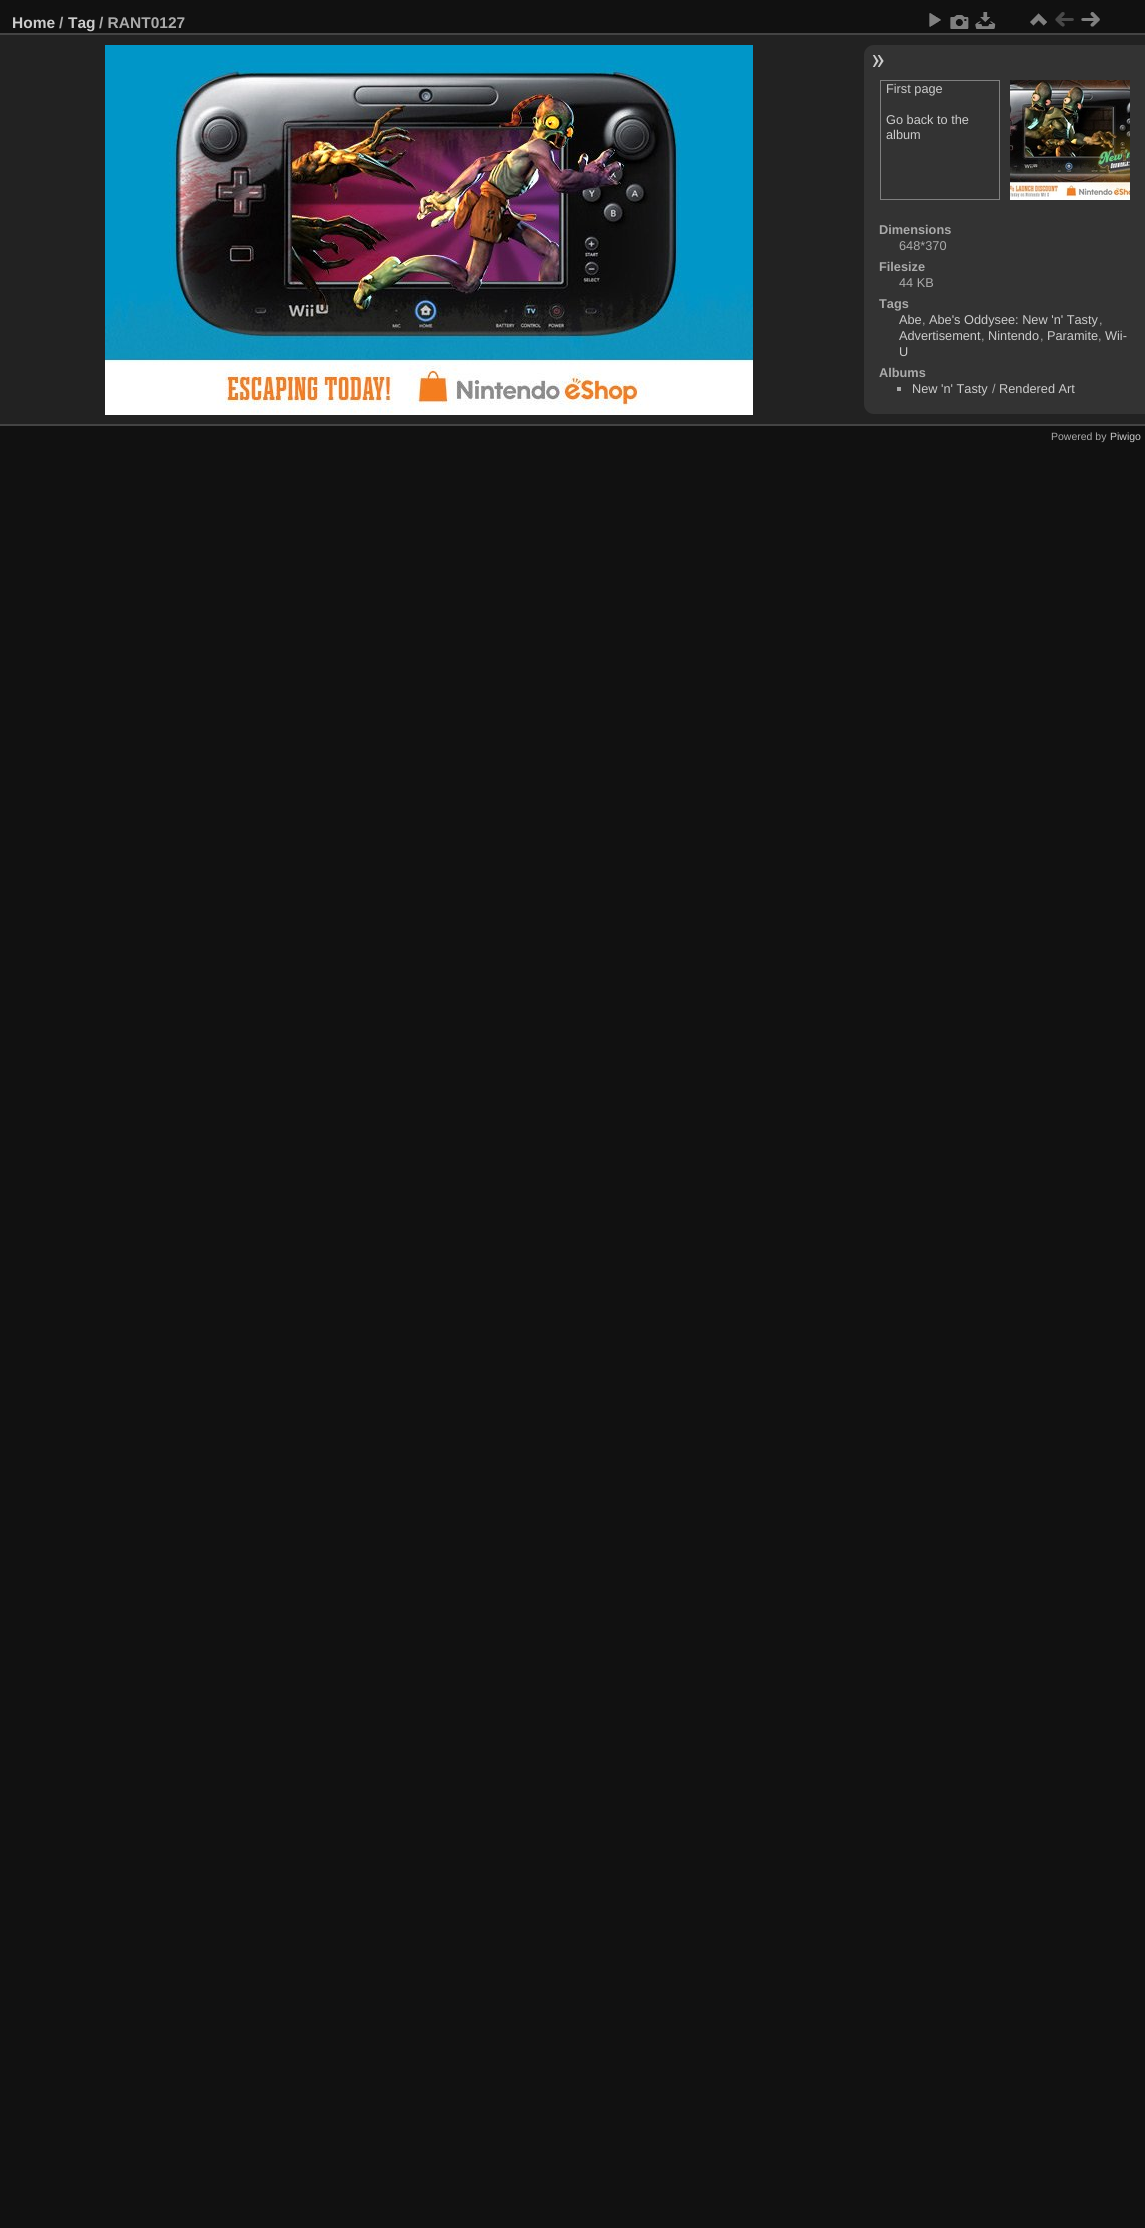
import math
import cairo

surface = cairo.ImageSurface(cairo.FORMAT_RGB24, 1145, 2228)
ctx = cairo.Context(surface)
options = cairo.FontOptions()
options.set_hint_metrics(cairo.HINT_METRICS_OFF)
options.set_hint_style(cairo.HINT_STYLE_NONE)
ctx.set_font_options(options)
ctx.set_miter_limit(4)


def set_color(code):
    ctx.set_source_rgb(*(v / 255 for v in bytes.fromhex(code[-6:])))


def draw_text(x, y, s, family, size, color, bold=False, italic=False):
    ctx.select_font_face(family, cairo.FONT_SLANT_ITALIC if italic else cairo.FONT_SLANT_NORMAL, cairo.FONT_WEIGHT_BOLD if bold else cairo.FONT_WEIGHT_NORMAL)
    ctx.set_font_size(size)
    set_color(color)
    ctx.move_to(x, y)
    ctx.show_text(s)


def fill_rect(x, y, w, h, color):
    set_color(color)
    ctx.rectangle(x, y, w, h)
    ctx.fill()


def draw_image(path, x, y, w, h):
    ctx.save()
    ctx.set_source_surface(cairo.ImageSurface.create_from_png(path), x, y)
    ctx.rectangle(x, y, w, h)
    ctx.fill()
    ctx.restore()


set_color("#111111")
ctx.paint()
fill_rect(0, 35, 1145, 389, "#222222")
fill_rect(0, 424, 1145, 2, "#444444")
fill_rect(0, 33, 1145, 2, "#444444")
draw_text(12, 28, "Home", "Liberation Sans", 15.5, "#cccccc", bold=True)
draw_text(59, 28, "/", "Liberation Sans", 15.5, "#aaaaaa", bold=True)
draw_text(68, 28, "Tag", "Liberation Sans", 15.5, "#cccccc", bold=True)
draw_text(99, 28, "/ RANT0127", "Liberation Sans", 15.5, "#aaaaaa", bold=True)
draw_image("assets/img1.png", 929, 13, 12, 14)
draw_image("assets/img2.png", 950, 15, 19, 14)
draw_image("assets/img3.png", 975, 12, 21, 17)
draw_image("assets/img4.png", 1030, 13, 17, 13)
draw_image("assets/img5.png", 1055, 12, 19, 15)
draw_image("assets/img6.png", 1081, 12, 19, 15)
draw_image("assets/img7.png", 105, 45, 648, 370)
set_color("#333333")
ctx.new_path()
ctx.move_to(874, 45)
ctx.line_to(1145, 45)
ctx.line_to(1145, 414)
ctx.line_to(874, 414)
ctx.curve_to(868.5, 414, 864, 409.5, 864, 404)
ctx.line_to(864, 55)
ctx.curve_to(864, 49.5, 868.5, 45, 874, 45)
ctx.close_path()
ctx.fill()
draw_image("assets/img8.png", 872, 55, 12, 12)
ctx.rectangle(880.5, 80.5, 119, 119)
set_color("#808080")
ctx.set_line_width(1)
ctx.stroke()
draw_text(886, 93, "First page", "Liberation Sans", 12.75, "#cccccc")
draw_text(886, 124, "Go back to the", "Liberation Sans", 12.75, "#cccccc")
draw_text(886, 139, "album", "Liberation Sans", 12.75, "#cccccc")
draw_image("assets/img9.png", 1010, 80, 120, 120)
draw_text(879, 234, "Dimensions", "Liberation Sans", 12.75, "#aaaaaa", bold=True)
draw_text(899, 250, "648*370", "Liberation Sans", 12.75, "#aaaaaa")
draw_text(879, 271, "Filesize", "Liberation Sans", 12.75, "#aaaaaa", bold=True)
draw_text(899, 287, "44 KB", "Liberation Sans", 12.75, "#aaaaaa")
draw_text(879, 308, "Tags", "Liberation Sans", 12.75, "#aaaaaa", bold=True)
draw_text(899, 324, "Abe", "Liberation Sans", 12.75, "#cccccc")
draw_text(922, 324, ",", "Liberation Sans", 12.75, "#aaaaaa")
draw_text(929, 324, "Abe's Oddysee: New 'n' Tasty", "Liberation Sans", 12.75, "#cccccc")
draw_text(1099, 324, ",", "Liberation Sans", 12.75, "#aaaaaa")
draw_text(899, 340, "Advertisement", "Liberation Sans", 12.75, "#cccccc")
draw_text(981, 340, ",", "Liberation Sans", 12.75, "#aaaaaa")
draw_text(988, 340, "Nintendo", "Liberation Sans", 12.75, "#cccccc")
draw_text(1040, 340, ",", "Liberation Sans", 12.75, "#aaaaaa")
draw_text(1047, 340, "Paramite", "Liberation Sans", 12.75, "#cccccc")
draw_text(1098, 340, ",", "Liberation Sans", 12.75, "#aaaaaa")
draw_text(1105, 340, "Wii-", "Liberation Sans", 12.75, "#cccccc")
draw_text(899, 356, "U", "Liberation Sans", 12.75, "#cccccc")
draw_text(879, 377, "Albums", "Liberation Sans", 12.75, "#aaaaaa", bold=True)
fill_rect(897, 387, 4, 4, "#aaaaaa")
draw_text(912, 393, "New 'n' Tasty", "Liberation Sans", 12.75, "#cccccc")
draw_text(992, 393, "/", "Liberation Sans", 12.75, "#aaaaaa")
draw_text(999, 393, "Rendered Art", "Liberation Sans", 12.75, "#cccccc")
draw_text(1051, 440, "Powered by", "Liberation Sans", 10.5, "#aaaaaa")
draw_text(1110, 440, "Piwigo", "Liberation Sans", 10.5, "#cccccc")
surface.write_to_png("output.png")
